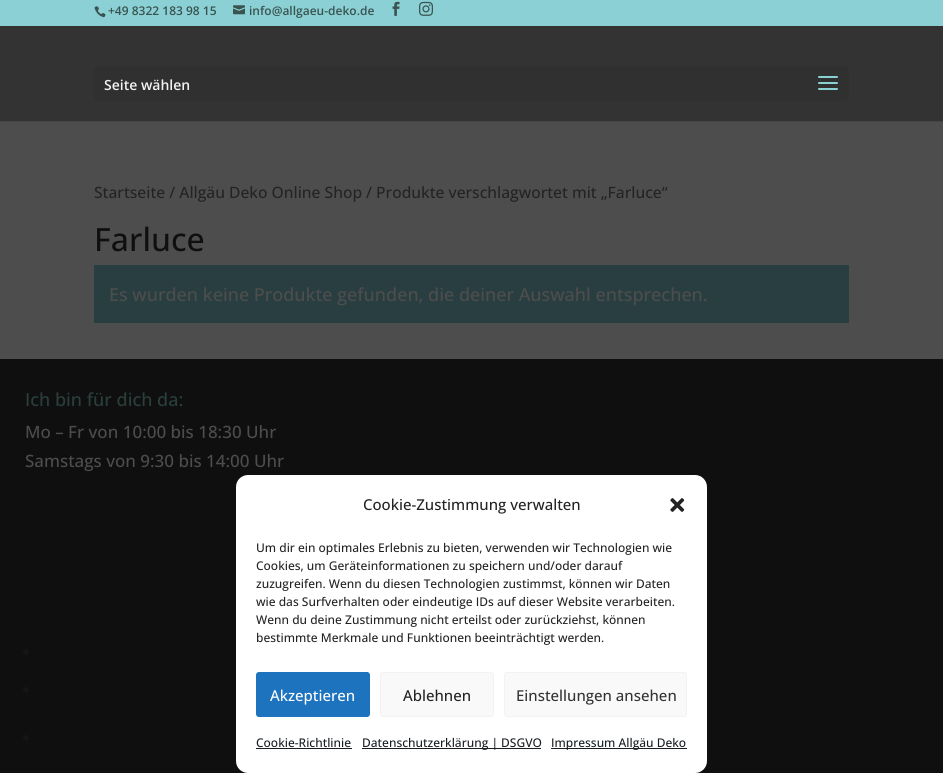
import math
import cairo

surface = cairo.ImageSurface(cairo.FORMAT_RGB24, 943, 773)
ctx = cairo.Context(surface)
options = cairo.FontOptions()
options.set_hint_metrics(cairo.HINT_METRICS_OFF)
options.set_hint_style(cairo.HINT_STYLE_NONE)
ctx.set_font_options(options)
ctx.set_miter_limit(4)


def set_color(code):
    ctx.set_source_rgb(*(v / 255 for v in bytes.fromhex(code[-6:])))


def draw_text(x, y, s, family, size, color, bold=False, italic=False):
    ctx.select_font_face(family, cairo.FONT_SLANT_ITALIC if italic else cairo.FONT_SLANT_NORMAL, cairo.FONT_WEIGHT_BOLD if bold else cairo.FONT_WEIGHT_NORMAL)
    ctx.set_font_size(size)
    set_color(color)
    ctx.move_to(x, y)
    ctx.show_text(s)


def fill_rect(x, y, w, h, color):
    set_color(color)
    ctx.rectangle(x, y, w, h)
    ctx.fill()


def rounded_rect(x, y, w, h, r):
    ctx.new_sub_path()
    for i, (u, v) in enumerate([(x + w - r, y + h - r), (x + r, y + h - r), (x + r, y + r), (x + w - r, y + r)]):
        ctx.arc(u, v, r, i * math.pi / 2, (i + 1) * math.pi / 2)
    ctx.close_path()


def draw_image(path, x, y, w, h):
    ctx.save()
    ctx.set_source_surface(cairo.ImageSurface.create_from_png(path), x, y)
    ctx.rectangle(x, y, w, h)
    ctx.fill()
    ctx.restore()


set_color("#4d4d4d")
ctx.paint()
fill_rect(0, 0, 943, 26, "#8ad0d4")
draw_image("assets/img1.png", 94, 6, 12, 12)
draw_text(108, 15, "+49 8322 183 98 15", "Open Sans SemiBold", 12, "#395350")
draw_image("assets/img2.png", 233, 5, 12, 10)
draw_text(249, 15, "info@allgaeu-deko.de", "Open Sans SemiBold", 12, "#395350")
draw_image("assets/img3.png", 392, 1, 8, 15)
draw_image("assets/img4.png", 419, 1, 14, 15)
fill_rect(0, 121, 943, 1, "#454545")
fill_rect(0, 26, 943, 95, "#333333")
set_color("#303030")
rounded_rect(94, 66, 755, 35, 5)
ctx.fill()
draw_text(104, 90, "Seite wählen", "Open Sans SemiBold", 14, "#f2f2f2")
draw_image("assets/img5.png", 818, 76, 20, 14)
draw_text(94, 198, "Startseite / Allgäu Deko Online Shop / Produkte verschlagwortet mit „Farluce“", "Open Sans Medium", 15.65, "#232323")
draw_text(94, 251, "Farluce", "Open Sans Medium", 32, "#0f0f0f")
fill_rect(94, 265, 755, 58, "#293e40")
draw_text(109, 301, "Es wurden keine Produkte gefunden, die deiner Auswahl entsprechen.", "Open Sans Medium", 18, "#4d4d4d")
fill_rect(0, 359, 943, 414, "#0f0f0f")
draw_text(25, 406, "Ich bin für dich da:", "Open Sans Medium", 18, "#2a3f3c")
draw_text(25, 438, "Mo – Fr von 10:00 bis 18:30 Uhr", "Open Sans Medium", 17, "#4d4d4d")
draw_text(25, 467, "Samstags von 9:30 bis 14:00 Uhr", "Open Sans Medium", 17, "#4d4d4d")
set_color("#151515")
ctx.new_path()
ctx.arc(26, 652, 3, 0, 2 * math.pi)
ctx.fill()
ctx.arc(26, 690, 3, 0, 2 * math.pi)
ctx.fill()
ctx.arc(26, 738, 3, 0, 2 * math.pi)
ctx.fill()
set_color("#ffffff")
rounded_rect(236, 475, 471, 298, 12)
ctx.fill()
draw_text(363, 510, "Cookie-Zustimmung verwalten", "Open Sans Medium", 15, "#232323")
draw_image("assets/img6.png", 670, 498, 15, 14)
draw_text(256, 552, "Um dir ein optimales Erlebnis zu bieten, verwenden wir Technologien wie", "Open Sans Medium", 12, "#232323")
draw_text(256, 570, "Cookies, um Geräteinformationen zu speichern und/oder darauf", "Open Sans Medium", 12, "#232323")
draw_text(256, 588, "zuzugreifen. Wenn du diesen Technologien zustimmst, können wir Daten", "Open Sans Medium", 12, "#232323")
draw_text(256, 606, "wie das Surfverhalten oder eindeutige IDs auf dieser Website verarbeiten.", "Open Sans Medium", 12, "#232323")
draw_text(256, 624, "Wenn du deine Zustimmung nicht erteilst oder zurückziehst, können", "Open Sans Medium", 12, "#232323")
draw_text(256, 642, "bestimmte Merkmale und Funktionen beeinträchtigt werden.", "Open Sans Medium", 12, "#232323")
set_color("#1e73be")
rounded_rect(256.5, 672.5, 113, 44, 2.5)
ctx.fill_preserve()
ctx.set_line_width(1)
ctx.stroke()
draw_text(270, 701, "Akzeptieren", "Open Sans Medium", 15, "#ffffff")
set_color("#f9f9f9")
rounded_rect(380.5, 672.5, 113, 44, 2.5)
ctx.fill_preserve()
set_color("#f2f2f2")
ctx.stroke()
draw_text(403, 701, "Ablehnen", "Open Sans Medium", 15, "#232323")
set_color("#f9f9f9")
rounded_rect(504.5, 672.5, 182, 44, 2.5)
ctx.fill_preserve()
set_color("#f2f2f2")
ctx.stroke()
draw_text(516, 701, "Einstellungen ansehen", "Open Sans Medium", 15, "#333333")
draw_text(256, 747, "Cookie-Richtlinie", "Open Sans Medium", 12, "#191e23")
fill_rect(256, 748, 96, 1, "#191e23")
fill_rect(362, 748, 179, 1, "#191e23")
draw_text(362, 747, "Datenschutzerklärung | DSGVO", "Open Sans Medium", 12, "#191e23")
fill_rect(551, 748, 136, 1, "#191e23")
draw_text(551, 747, "Impressum Allgäu Deko", "Open Sans Medium", 12, "#191e23")
surface.write_to_png("output.png")
